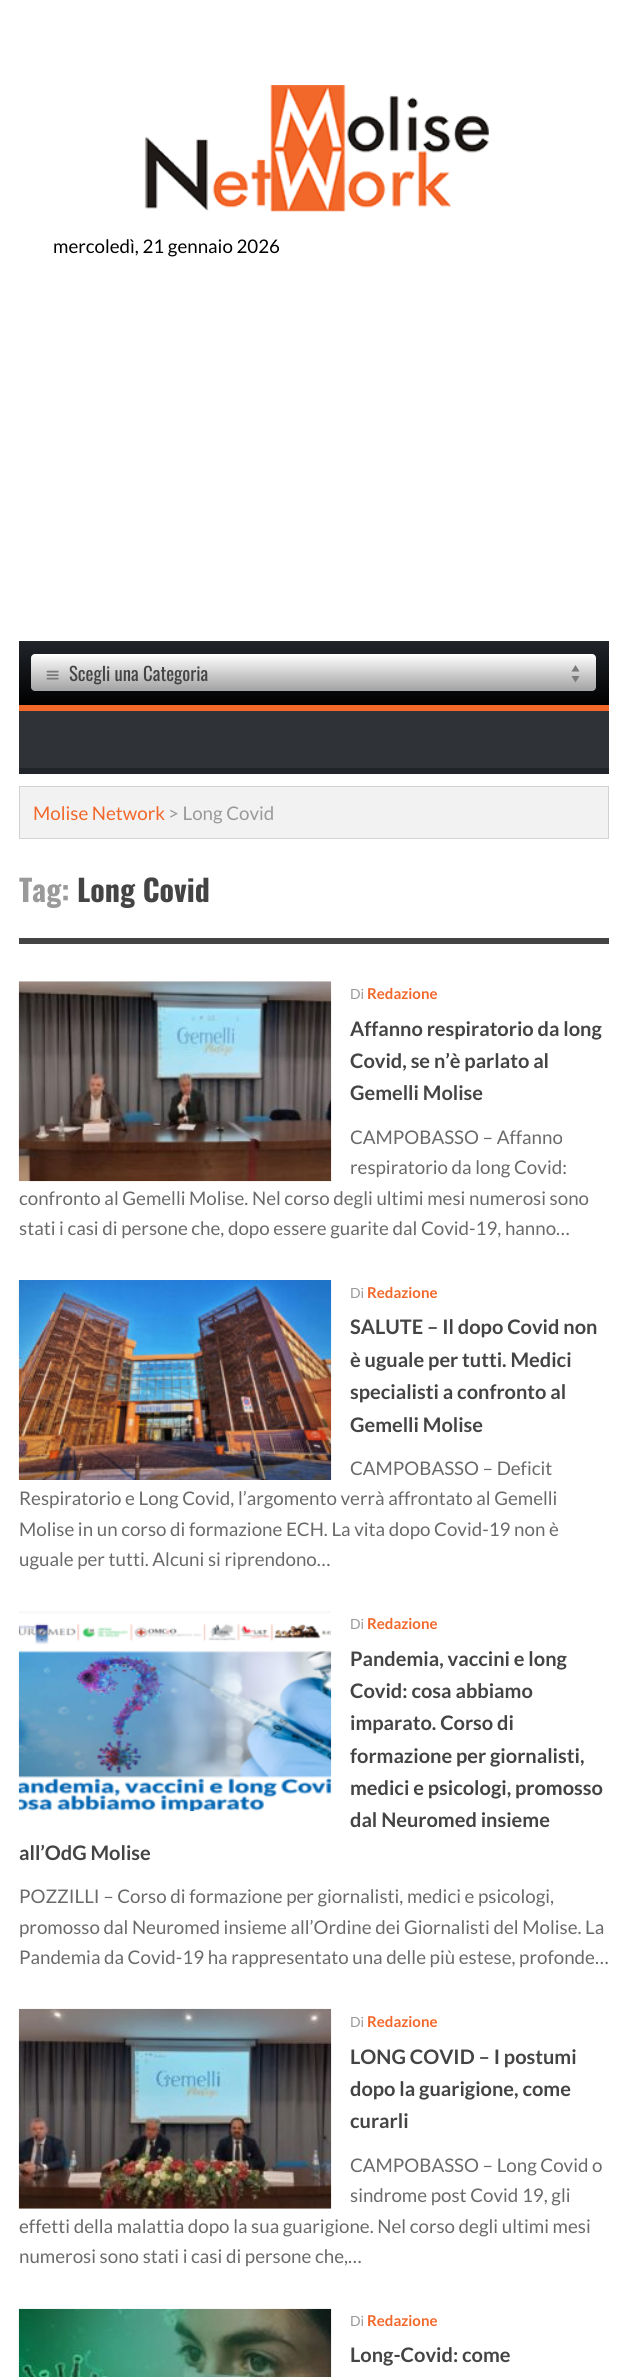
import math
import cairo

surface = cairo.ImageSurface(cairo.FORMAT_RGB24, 627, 2377)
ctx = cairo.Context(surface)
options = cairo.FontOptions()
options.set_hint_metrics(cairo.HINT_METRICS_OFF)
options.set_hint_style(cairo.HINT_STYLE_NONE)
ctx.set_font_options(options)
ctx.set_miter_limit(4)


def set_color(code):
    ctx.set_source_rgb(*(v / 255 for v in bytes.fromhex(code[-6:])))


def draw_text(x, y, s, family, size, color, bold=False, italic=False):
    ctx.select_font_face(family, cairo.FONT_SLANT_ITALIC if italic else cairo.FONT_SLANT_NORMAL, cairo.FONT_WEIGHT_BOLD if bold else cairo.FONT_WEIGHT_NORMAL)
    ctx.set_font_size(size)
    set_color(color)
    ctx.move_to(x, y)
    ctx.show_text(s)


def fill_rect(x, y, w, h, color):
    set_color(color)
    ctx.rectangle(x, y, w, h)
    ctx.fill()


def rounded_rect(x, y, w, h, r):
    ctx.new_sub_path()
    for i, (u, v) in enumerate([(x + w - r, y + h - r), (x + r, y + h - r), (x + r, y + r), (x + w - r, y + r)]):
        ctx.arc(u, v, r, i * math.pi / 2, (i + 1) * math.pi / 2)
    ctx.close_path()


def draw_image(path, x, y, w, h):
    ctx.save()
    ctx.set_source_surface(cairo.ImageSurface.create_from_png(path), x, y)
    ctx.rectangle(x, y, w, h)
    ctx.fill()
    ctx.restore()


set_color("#ffffff")
ctx.paint()
draw_image("assets/img1.png", 144, 85, 345, 127)
draw_text(53, 253, "mercoledì, 21 gennaio 2026", "Lato", 18.75, "#000000")
gradient = cairo.LinearGradient(314, 641, 314, 705)
gradient.add_color_stop_rgba(0, 0.129, 0.145, 0.165, 1)
gradient.add_color_stop_rgba(1, 0, 0, 0, 1)
ctx.set_source(gradient)
ctx.rectangle(19, 641, 590, 64)
ctx.fill()
fill_rect(19, 705, 590, 6, "#f2672a")
gradient = cairo.LinearGradient(314, 654, 314, 691)
gradient.add_color_stop_rgba(0, 1, 1, 1, 1)
gradient.add_color_stop_rgba(1, 0.635, 0.635, 0.635, 1)
ctx.set_source(gradient)
rounded_rect(31, 654, 565, 37, 4)
ctx.fill()
draw_image("assets/img2.png", 46, 670, 13, 10)
draw_text(69, 681, "Scegli una Categoria", "Oswald", 18.75, "#444444")
set_color("#7a7a7a")
ctx.new_path()
ctx.move_to(575.5, 665)
ctx.line_to(579.5, 671.5)
ctx.line_to(571.5, 671.5)
ctx.close_path()
ctx.move_to(575.5, 682.5)
ctx.line_to(571.5, 676)
ctx.line_to(579.5, 676)
ctx.close_path()
ctx.fill()
fill_rect(19, 711, 590, 57, "#2f3337")
fill_rect(19, 768, 590, 6, "#21252a")
set_color("#f2f2f2")
ctx.rectangle(19.5, 786.5, 589, 52)
ctx.fill_preserve()
set_color("#d2d2d2")
ctx.set_line_width(1)
ctx.stroke()
draw_text(33, 820, "Molise Network", "Lato", 18.75, "#f2672a")
draw_text(168, 820, "> Long Covid", "Lato", 18.75, "#9a9a9a")
fill_rect(19, 938, 590, 6, "#444444")
draw_text(19, 902, "Tag:", "Oswald", 30, "#9a9a9a", bold=True)
draw_text(77, 902, "Long Covid", "Oswald", 30, "#444444", bold=True)
draw_image("assets/img3.png", 18, 981, 314, 201)
draw_text(350, 999, "Di", "Lato", 14, "#9a9a9a")
draw_text(367, 999, "Redazione", "Lato", 15, "#f2672a", bold=True)
draw_text(350, 1036, "Affanno respiratorio da long", "Lato", 20, "#444444", bold=True)
draw_text(350, 1068, "Covid, se n’è parlato al", "Lato", 20, "#444444", bold=True)
draw_text(350, 1100, "Gemelli Molise", "Lato", 20, "#444444", bold=True)
draw_text(350, 1144, "CAMPOBASSO – Affanno", "Lato", 18.75, "#6a6a6a")
draw_text(350, 1174, "respiratorio da long Covid:", "Lato", 18.75, "#6a6a6a")
draw_text(19, 1205, "confronto al Gemelli Molise. Nel corso degli ultimi mesi numerosi sono", "Lato", 18.75, "#6a6a6a")
draw_text(19, 1235, "stati i casi di persone che, dopo essere guarite dal Covid-19, hanno…", "Lato", 18.75, "#6a6a6a")
draw_image("assets/img4.png", 18, 1280, 314, 200)
draw_text(350, 1298, "Di", "Lato", 14, "#9a9a9a")
draw_text(367, 1298, "Redazione", "Lato", 15, "#f2672a", bold=True)
draw_text(350, 1334, "SALUTE – Il dopo Covid non", "Lato", 20, "#444444", bold=True)
draw_text(350, 1367, "è uguale per tutti. Medici", "Lato", 20, "#444444", bold=True)
draw_text(350, 1399, "specialisti a confronto al", "Lato", 20, "#444444", bold=True)
draw_text(350, 1432, "Gemelli Molise", "Lato", 20, "#444444", bold=True)
draw_text(350, 1475, "CAMPOBASSO – Deficit", "Lato", 18.75, "#6a6a6a")
draw_text(19, 1505, "Respiratorio e Long Covid, l’argomento verrà affrontato al Gemelli", "Lato", 18.75, "#6a6a6a")
draw_text(19, 1536, "Molise in un corso di formazione ECH. La vita dopo Covid-19 non è", "Lato", 18.75, "#6a6a6a")
draw_text(19, 1566, "uguale per tutti. Alcuni si riprendono…", "Lato", 18.75, "#6a6a6a")
draw_image("assets/img5.png", 18, 1611, 314, 201)
draw_text(350, 1629, "Di", "Lato", 14, "#9a9a9a")
draw_text(367, 1629, "Redazione", "Lato", 15, "#f2672a", bold=True)
draw_text(350, 1666, "Pandemia, vaccini e long", "Lato", 20, "#444444", bold=True)
draw_text(350, 1698, "Covid: cosa abbiamo", "Lato", 20, "#444444", bold=True)
draw_text(350, 1730, "imparato. Corso di", "Lato", 20, "#444444", bold=True)
draw_text(350, 1763, "formazione per giornalisti,", "Lato", 20, "#444444", bold=True)
draw_text(350, 1795, "medici e psicologi, promosso", "Lato", 20, "#444444", bold=True)
draw_text(350, 1827, "dal Neuromed insieme", "Lato", 20, "#444444", bold=True)
draw_text(19, 1860, "all’OdG Molise", "Lato", 20, "#444444", bold=True)
draw_text(19, 1903, "POZZILLI – Corso di formazione per giornalisti, medici e psicologi,", "Lato", 18.75, "#6a6a6a")
draw_text(19, 1934, "promosso dal Neuromed insieme all’Ordine dei Giornalisti del Molise. La", "Lato", 18.75, "#6a6a6a")
draw_text(19, 1964, "Pandemia da Covid-19 ha rappresentato una delle più estese, profonde…", "Lato", 18.75, "#6a6a6a")
draw_image("assets/img6.png", 18, 2008, 314, 201)
draw_text(350, 2027, "Di", "Lato", 14, "#9a9a9a")
draw_text(367, 2027, "Redazione", "Lato", 15, "#f2672a", bold=True)
draw_text(350, 2064, "LONG COVID – I postumi", "Lato", 20, "#444444", bold=True)
draw_text(350, 2096, "dopo la guarigione, come", "Lato", 20, "#444444", bold=True)
draw_text(350, 2128, "curarli", "Lato", 20, "#444444", bold=True)
draw_text(350, 2172, "CAMPOBASSO – Long Covid o", "Lato", 18.75, "#6a6a6a")
draw_text(350, 2202, "sindrome post Covid 19, gli", "Lato", 18.75, "#6a6a6a")
draw_text(19, 2233, "effetti della malattia dopo la sua guarigione. Nel corso degli ultimi mesi", "Lato", 18.75, "#6a6a6a")
draw_text(19, 2263, "numerosi sono stati i casi di persone che,…", "Lato", 18.75, "#6a6a6a")
draw_image("assets/img7.png", 18, 2308, 314, 69)
draw_text(350, 2326, "Di", "Lato", 14, "#9a9a9a")
draw_text(367, 2326, "Redazione", "Lato", 15, "#f2672a", bold=True)
draw_text(350, 2362, "Long-Covid: come", "Lato", 20, "#444444", bold=True)
surface.write_to_png("output.png")
